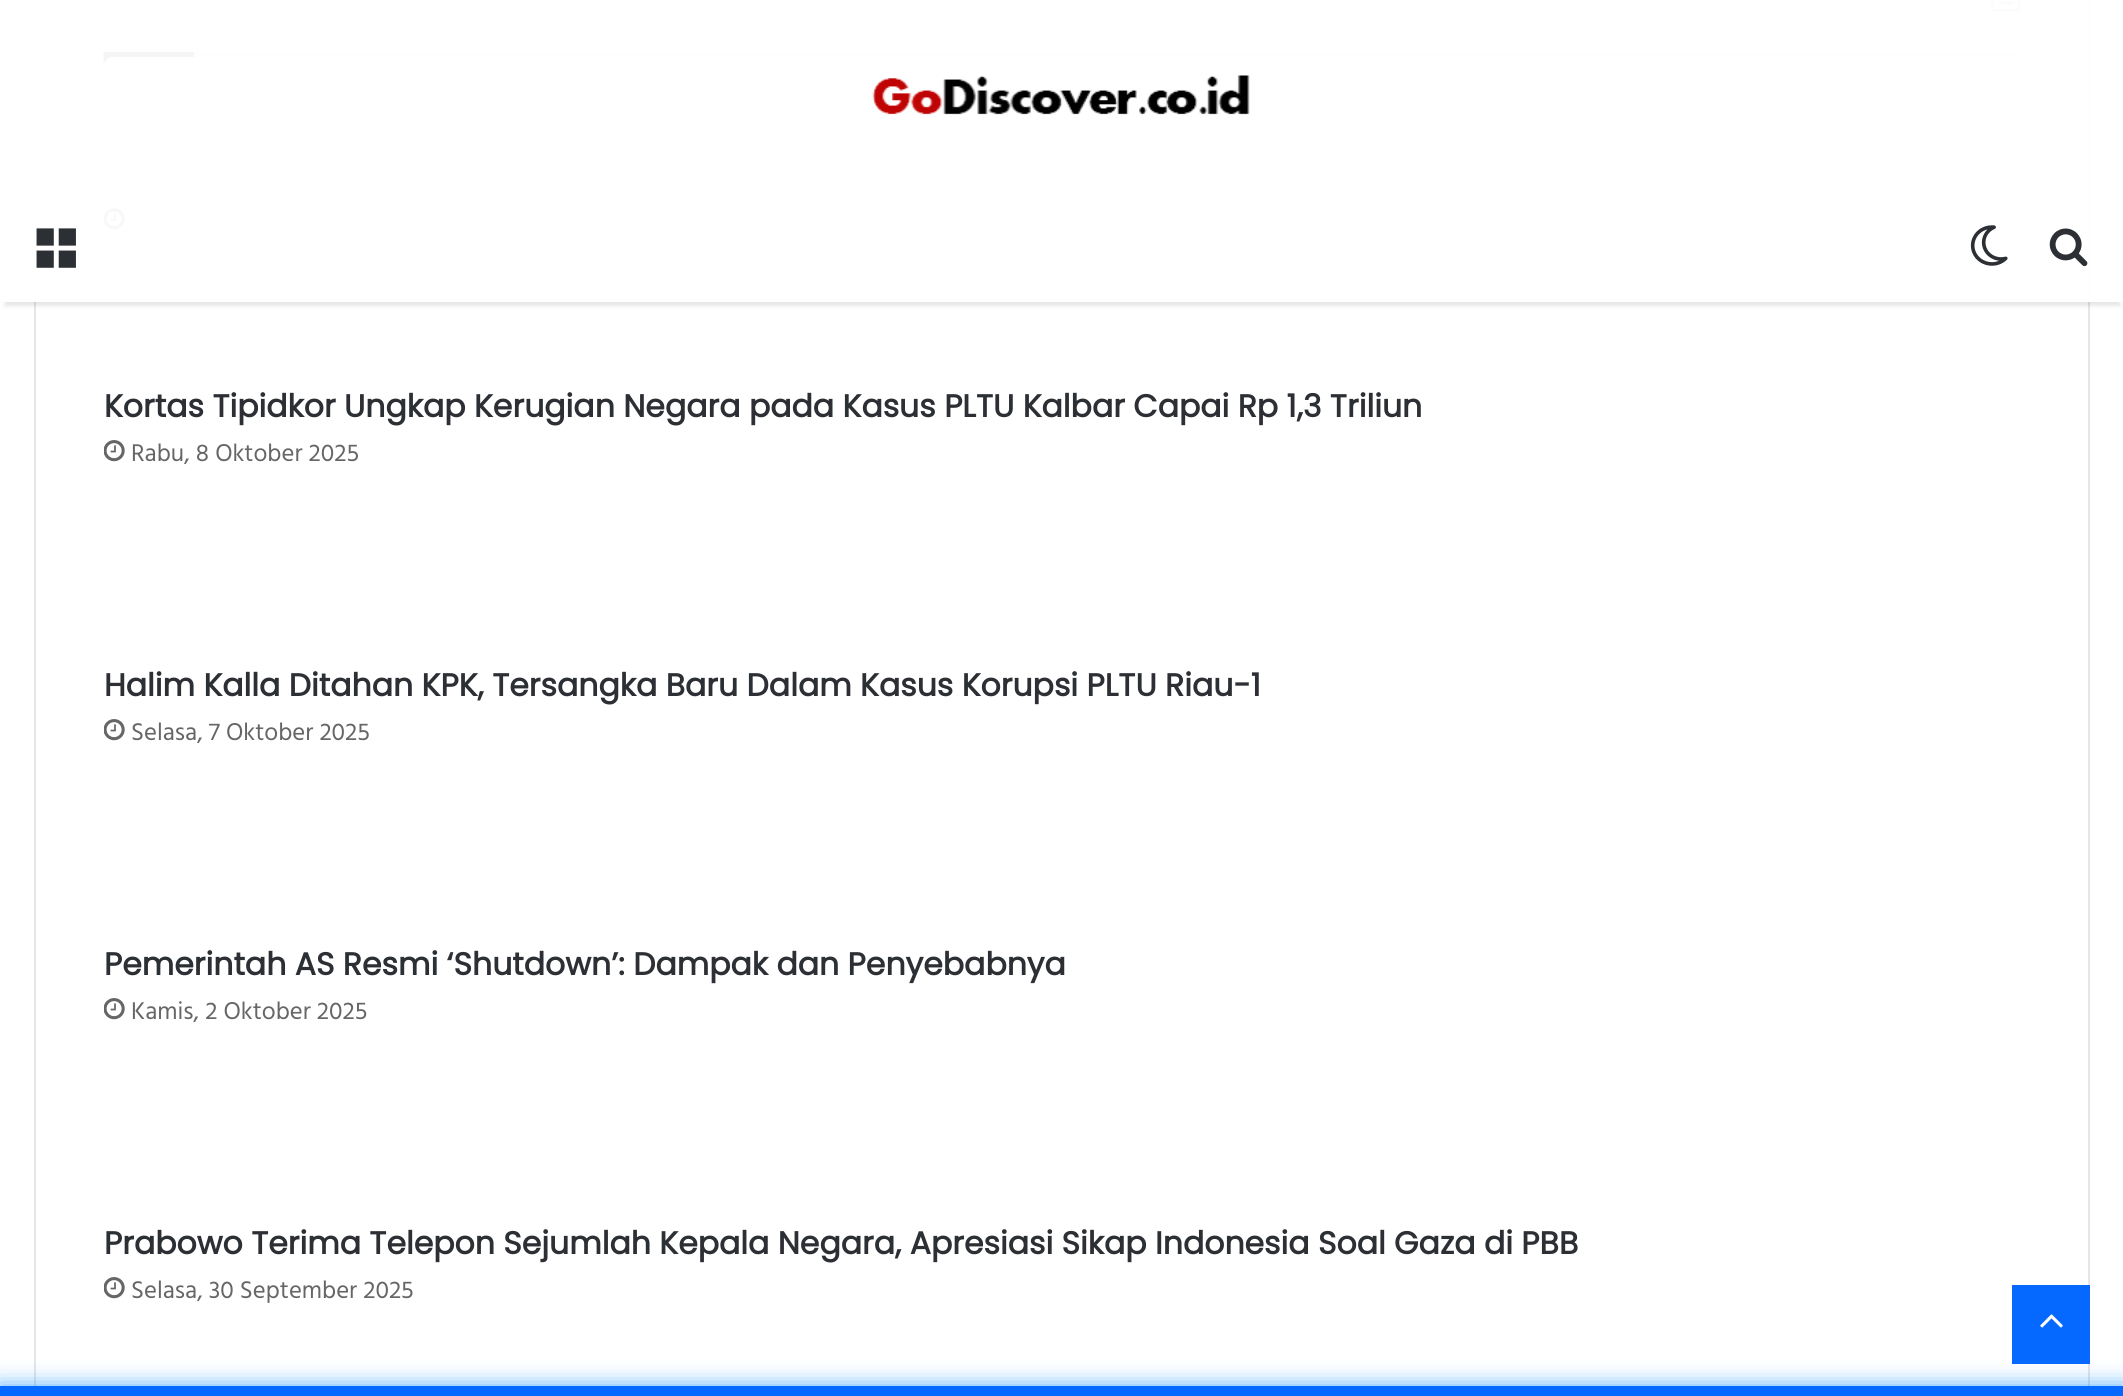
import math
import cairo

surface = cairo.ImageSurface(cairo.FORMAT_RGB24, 2123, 1396)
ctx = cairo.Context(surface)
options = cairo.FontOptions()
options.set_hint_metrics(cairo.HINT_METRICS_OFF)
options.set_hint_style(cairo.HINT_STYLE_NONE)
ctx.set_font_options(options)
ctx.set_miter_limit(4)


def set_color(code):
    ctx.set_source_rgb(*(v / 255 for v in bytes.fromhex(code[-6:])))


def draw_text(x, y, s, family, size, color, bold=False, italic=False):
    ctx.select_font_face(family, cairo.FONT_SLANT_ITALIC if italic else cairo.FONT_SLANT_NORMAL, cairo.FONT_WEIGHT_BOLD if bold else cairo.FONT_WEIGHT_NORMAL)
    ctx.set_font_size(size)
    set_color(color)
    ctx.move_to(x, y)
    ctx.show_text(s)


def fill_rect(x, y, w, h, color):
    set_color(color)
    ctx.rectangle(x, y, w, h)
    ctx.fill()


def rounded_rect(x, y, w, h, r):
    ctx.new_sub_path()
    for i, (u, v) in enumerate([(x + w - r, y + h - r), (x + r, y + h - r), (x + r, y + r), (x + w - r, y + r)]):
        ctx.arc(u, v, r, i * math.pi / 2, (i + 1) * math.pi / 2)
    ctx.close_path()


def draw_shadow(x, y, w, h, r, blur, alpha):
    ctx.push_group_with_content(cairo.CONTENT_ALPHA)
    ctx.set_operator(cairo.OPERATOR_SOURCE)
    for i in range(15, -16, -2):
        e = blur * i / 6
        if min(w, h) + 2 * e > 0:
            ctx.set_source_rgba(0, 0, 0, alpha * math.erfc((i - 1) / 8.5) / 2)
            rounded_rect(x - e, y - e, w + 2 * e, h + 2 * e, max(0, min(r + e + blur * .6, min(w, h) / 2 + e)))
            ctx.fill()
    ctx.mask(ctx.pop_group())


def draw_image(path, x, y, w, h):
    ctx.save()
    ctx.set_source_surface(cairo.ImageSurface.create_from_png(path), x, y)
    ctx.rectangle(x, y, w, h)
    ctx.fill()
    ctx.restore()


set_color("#ffffff")
ctx.paint()
ctx.rectangle(35, -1, 2054, 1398)
set_color("#e6e6e6")
ctx.stroke()
fill_rect(194, 52, 1827, 5, "#e6e6e6")
draw_image("assets/img5.png", 1991, 0, 30, 12)
set_color("#2c2f34")
ctx.new_path()
ctx.move_to(103.5, 52)
ctx.line_to(115, 52)
ctx.line_to(103.5, 63)
ctx.close_path()
ctx.fill()
fill_rect(104, 52, 90, 5, "#2c2f34")
draw_image("assets/img6.png", 104, 208, 21, 22)
ctx.save()
ctx.set_fill_rule(cairo.FILL_RULE_EVEN_ODD)
ctx.new_path()
ctx.move_to(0, 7)
ctx.line_to(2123, 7)
ctx.line_to(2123, 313)
ctx.line_to(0, 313)
ctx.close_path()
ctx.move_to(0, 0)
ctx.line_to(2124, 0)
ctx.line_to(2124, 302)
ctx.line_to(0, 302)
ctx.close_path()
ctx.clip()
set_color("#000000")
draw_shadow(5, 14, 2115, 292, 0, 2, 0.1)
ctx.restore()
ctx.set_source_rgba(1, 1, 1, 0.95)
ctx.rectangle(3, 0, 2119, 302)
ctx.fill()
draw_image("assets/img1.png", 872, 75, 378, 40)
draw_image("assets/img2.png", 36, 228, 40, 40)
draw_image("assets/img3.png", 1970, 225, 38, 41)
draw_image("assets/img4.png", 2049, 228, 39, 39)
draw_text(104, 417, "Kortas Tipidkor Ungkap Kerugian Negara pada Kasus PLTU Kalbar Capai Rp 1,3 Triliun", "Poppins", 31.5, "#2c2f34", bold=True)
draw_image("assets/img7.png", 104, 440, 21, 22)
draw_text(131, 461, "Rabu, 8 Oktober 2025", "Hind Madurai", 24.75, "#666666")
draw_text(104, 696, "Halim Kalla Ditahan KPK, Tersangka Baru Dalam Kasus Korupsi PLTU Riau-1", "Poppins", 31.5, "#2c2f34", bold=True)
draw_image("assets/img7.png", 104, 719, 21, 22)
draw_text(131, 740, "Selasa, 7 Oktober 2025", "Hind Madurai", 24.75, "#666666")
draw_text(104, 975, "Pemerintah AS Resmi ‘Shutdown’: Dampak dan Penyebabnya", "Poppins", 31.5, "#2c2f34", bold=True)
draw_image("assets/img7.png", 104, 998, 21, 22)
draw_text(131, 1019, "Kamis, 2 Oktober 2025", "Hind Madurai", 24.75, "#666666")
draw_text(104, 1254, "Prabowo Terima Telepon Sejumlah Kepala Negara, Apresiasi Sikap Indonesia Soal Gaza di PBB", "Poppins", 31.5, "#2c2f34", bold=True)
draw_image("assets/img7.png", 104, 1277, 21, 22)
draw_text(131, 1298, "Selasa, 30 September 2025", "Hind Madurai", 24.75, "#666666")
fill_rect(2012, 1285, 78, 79, "#0669ff")
draw_image("assets/img8.png", 2040, 1314, 23, 14)
set_color("#0088ff")
draw_shadow(0, 1386, 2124, 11, 0, 11, 0.7)
fill_rect(0, 1386, 2123, 10, "#0669ff")
surface.write_to_png("output.png")
